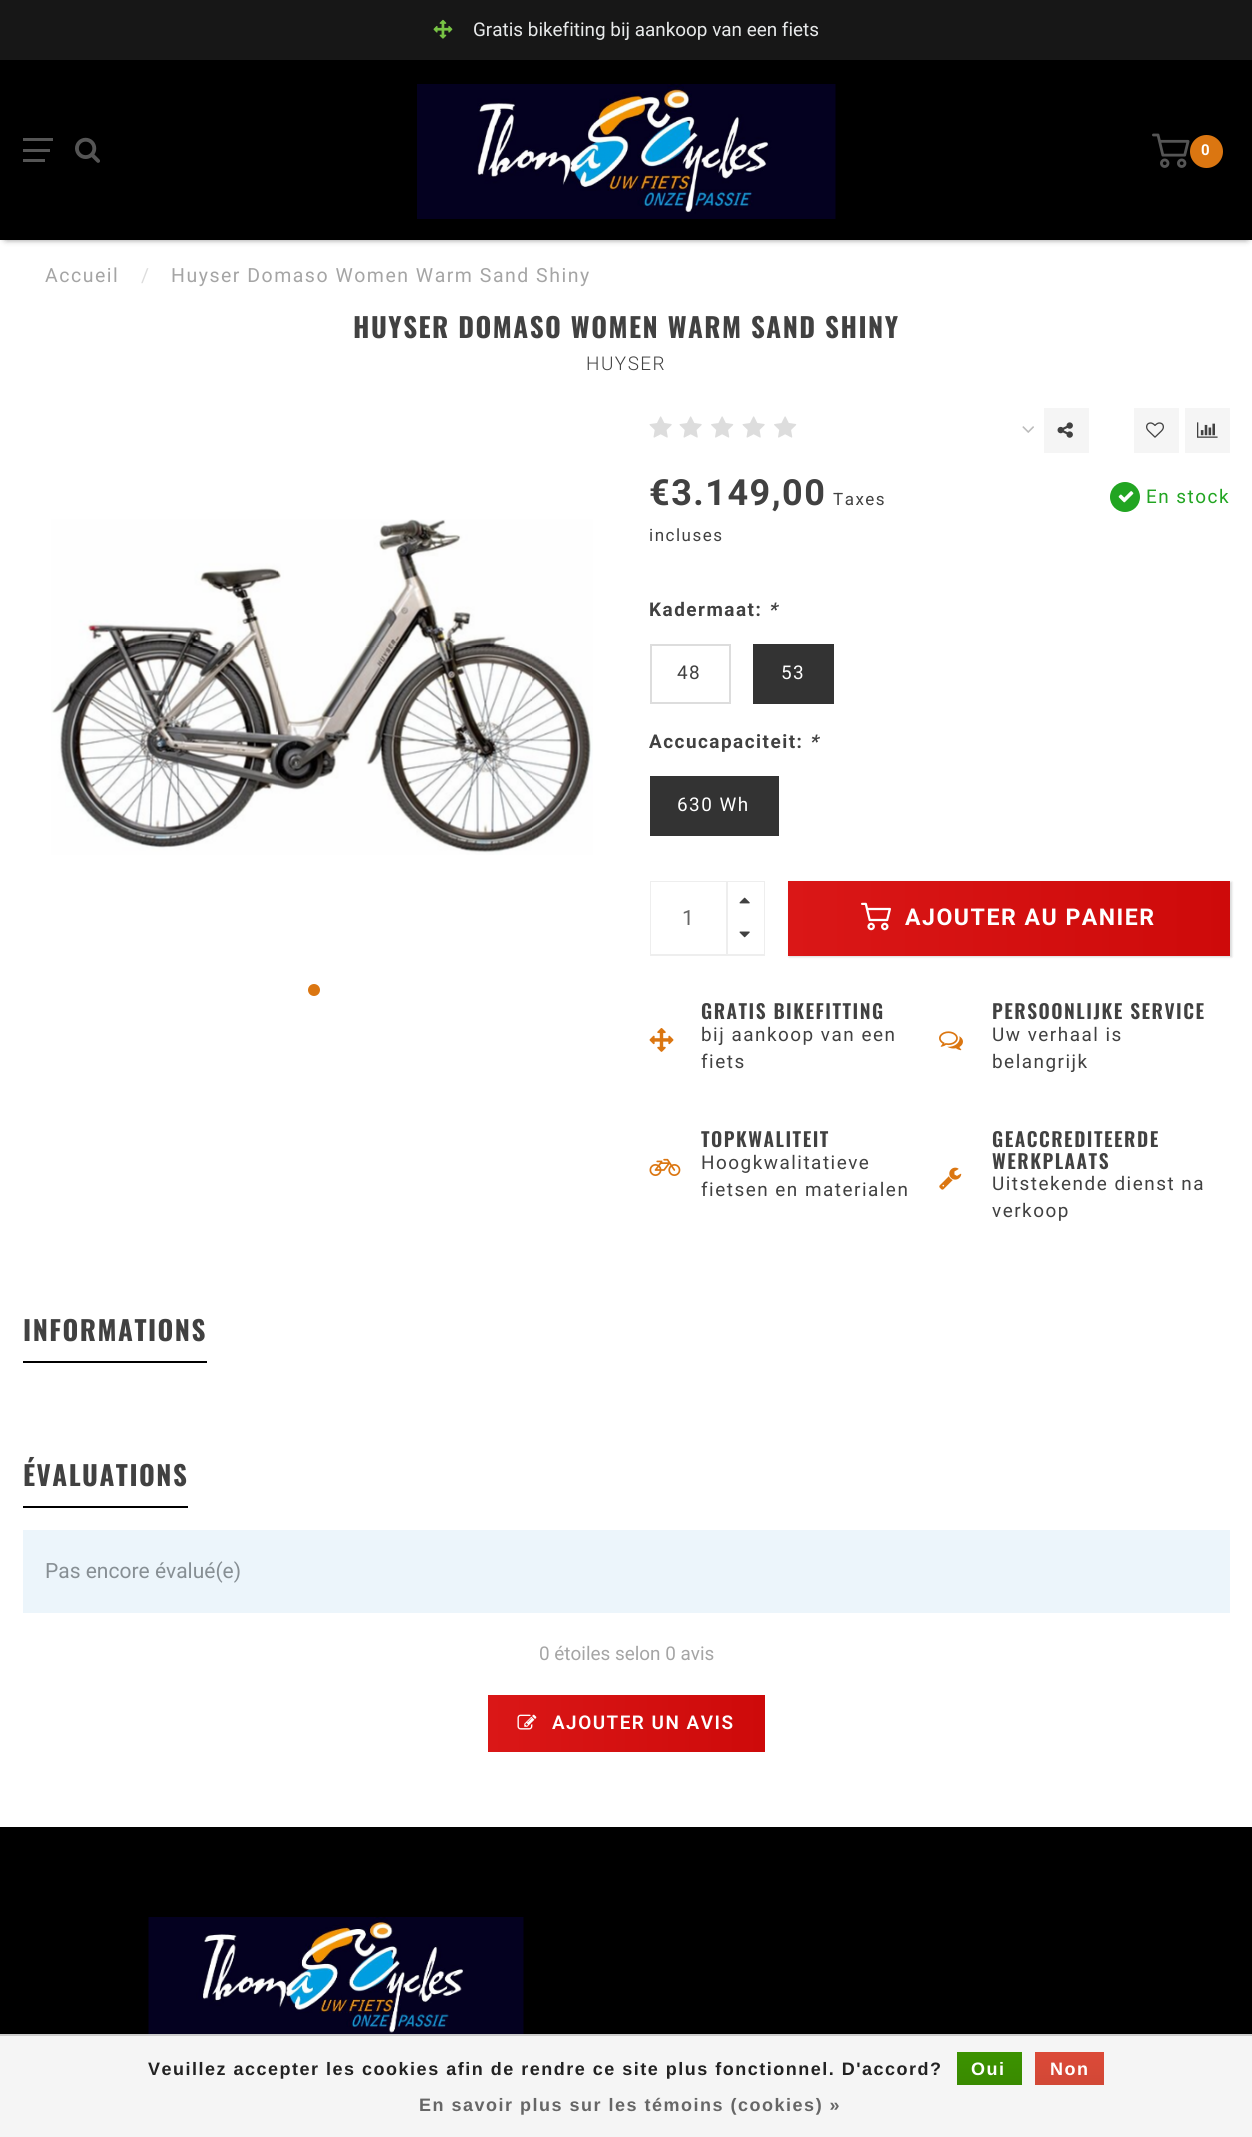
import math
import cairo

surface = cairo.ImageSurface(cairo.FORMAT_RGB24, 1252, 2137)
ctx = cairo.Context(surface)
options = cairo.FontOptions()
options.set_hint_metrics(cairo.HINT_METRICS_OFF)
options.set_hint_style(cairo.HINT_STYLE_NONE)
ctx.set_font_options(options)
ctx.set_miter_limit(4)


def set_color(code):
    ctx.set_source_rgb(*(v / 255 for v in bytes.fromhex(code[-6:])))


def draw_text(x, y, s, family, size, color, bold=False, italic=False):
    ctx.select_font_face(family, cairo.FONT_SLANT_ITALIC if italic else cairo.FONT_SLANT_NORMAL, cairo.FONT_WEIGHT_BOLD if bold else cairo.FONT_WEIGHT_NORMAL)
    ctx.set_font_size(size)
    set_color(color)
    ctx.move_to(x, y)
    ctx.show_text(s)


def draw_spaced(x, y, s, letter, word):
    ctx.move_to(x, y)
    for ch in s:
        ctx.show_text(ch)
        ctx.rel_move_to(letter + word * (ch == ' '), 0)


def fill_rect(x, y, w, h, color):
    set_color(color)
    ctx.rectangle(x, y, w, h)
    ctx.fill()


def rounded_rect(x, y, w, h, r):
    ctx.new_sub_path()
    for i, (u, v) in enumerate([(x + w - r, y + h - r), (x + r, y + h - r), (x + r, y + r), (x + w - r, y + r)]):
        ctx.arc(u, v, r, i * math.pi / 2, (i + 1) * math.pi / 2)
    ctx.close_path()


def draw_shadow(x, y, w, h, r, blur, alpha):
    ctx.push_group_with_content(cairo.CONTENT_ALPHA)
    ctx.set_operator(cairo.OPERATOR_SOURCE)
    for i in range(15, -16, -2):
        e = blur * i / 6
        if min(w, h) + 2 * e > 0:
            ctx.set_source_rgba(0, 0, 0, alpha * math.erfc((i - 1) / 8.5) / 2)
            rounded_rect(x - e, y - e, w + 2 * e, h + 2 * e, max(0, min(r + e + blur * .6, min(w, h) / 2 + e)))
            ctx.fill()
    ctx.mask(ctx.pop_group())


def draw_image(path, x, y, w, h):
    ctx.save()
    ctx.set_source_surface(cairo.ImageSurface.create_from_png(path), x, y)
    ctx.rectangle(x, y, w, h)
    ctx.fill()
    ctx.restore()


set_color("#ffffff")
ctx.paint()
fill_rect(0, 0, 1252, 60, "#171717")
draw_image("assets/img1.png", 433, 19, 20, 20)
draw_text(473, 36, "Gratis bikefiting bij aankoop van een fiets", "Roboto", 18.9, "#e7e9ea")
set_color("#000000")
draw_shadow(6, 69, 1241, 168, 0, 4, 1)
fill_rect(0, 60, 1252, 180, "#000000")
fill_rect(23, 138, 30, 3, "#555555")
fill_rect(23, 149, 27, 3, "#555555")
fill_rect(23, 159, 22, 3, "#555555")
draw_image("assets/img2.png", 75, 137, 25, 26)
draw_image("assets/img3.png", 417, 84, 419, 135)
draw_image("assets/img4.png", 1152, 133, 38, 35)
set_color("#db7611")
ctx.arc(1206.5, 151.5, 16.5, 0, 2 * math.pi)
ctx.fill()
ctx.select_font_face("Roboto", cairo.FONT_SLANT_NORMAL, cairo.FONT_WEIGHT_BOLD)
ctx.set_font_size(15)
set_color("#ffffff")
draw_spaced(1201, 155, "0", 1.5, 0)
ctx.select_font_face("Roboto")
ctx.set_font_size(19.5)
set_color("#a5a5a5")
draw_spaced(45, 282, "Accueil", 1.5, 0)
set_color("#dddddd")
draw_spaced(141, 282, "/", 1.5, 0)
set_color("#a5a5a5")
draw_spaced(171, 282, "Huyser Domaso Women Warm Sand Shiny", 1.5, 0)
ctx.select_font_face("Oswald", cairo.FONT_SLANT_NORMAL, cairo.FONT_WEIGHT_BOLD)
ctx.set_font_size(27)
set_color("#414141")
draw_spaced(353, 338, "HUYSER DOMASO WOMEN WARM SAND SHINY", 1.5, 0)
ctx.select_font_face("Roboto Light")
ctx.set_font_size(18.9)
draw_spaced(586, 370, "HUYSER", 1.5, 0)
draw_image("assets/img5.png", 51, 519, 542, 336)
set_color("#db7611")
ctx.arc(314, 990, 6, 0, 2 * math.pi)
ctx.fill()
draw_image("assets/img6.png", 649, 416, 23, 22)
draw_image("assets/img6.png", 679, 416, 23, 22)
draw_image("assets/img7.png", 711, 416, 23, 22)
draw_image("assets/img6.png", 742, 416, 23, 22)
draw_image("assets/img7.png", 774, 416, 23, 22)
draw_image("assets/img8.png", 1022, 426, 12, 7)
fill_rect(1044, 408, 45, 45, "#f5f5f5")
draw_image("assets/img9.png", 1057, 422, 16, 16)
fill_rect(1134, 408, 45, 45, "#f5f5f5")
draw_image("assets/img10.png", 1146, 422, 18, 16)
fill_rect(1185, 408, 45, 45, "#f5f5f5")
draw_image("assets/img11.png", 1197, 422, 21, 16)
ctx.select_font_face("Roboto", cairo.FONT_SLANT_NORMAL, cairo.FONT_WEIGHT_BOLD)
ctx.set_font_size(36)
set_color("#414141")
draw_spaced(649, 505, "€3.149,00", 1.5, 0)
ctx.select_font_face("Roboto")
ctx.set_font_size(17)
draw_spaced(833, 505, "Taxes", 1.5, 0)
draw_spaced(649, 541, "incluses", 1.5, 0)
set_color("#22a522")
ctx.new_path()
ctx.arc(1125, 497, 15, 0, 2 * math.pi)
ctx.fill()
draw_image("assets/img12.png", 1118, 491, 16, 12)
ctx.set_font_size(18.9)
draw_spaced(1146, 503, "En stock", 1.5, 0)
ctx.select_font_face("Roboto", cairo.FONT_SLANT_NORMAL, cairo.FONT_WEIGHT_BOLD)
set_color("#414141")
draw_spaced(649, 616, "Kadermaat:", 1.5, 0)
ctx.select_font_face("Roboto", cairo.FONT_SLANT_ITALIC, cairo.FONT_WEIGHT_BOLD)
draw_spaced(768, 616, "*", 1.5, 0)
ctx.rectangle(651, 645, 79, 58)
set_color("#dddddd")
ctx.stroke()
ctx.select_font_face("Roboto")
set_color("#414141")
draw_spaced(677, 679, "48", 1.5, 0)
fill_rect(753, 644, 81, 60, "#333333")
set_color("#ffffff")
draw_spaced(781, 679, "53", 1.5, 0)
ctx.select_font_face("Roboto", cairo.FONT_SLANT_NORMAL, cairo.FONT_WEIGHT_BOLD)
set_color("#414141")
draw_spaced(649, 748, "Accucapaciteit:", 1.5, 0)
ctx.select_font_face("Roboto", cairo.FONT_SLANT_ITALIC, cairo.FONT_WEIGHT_BOLD)
draw_spaced(809, 748, "*", 1.5, 0)
fill_rect(650, 776, 129, 60, "#333333")
ctx.select_font_face("Roboto")
set_color("#ffffff")
draw_spaced(677, 811, "630 Wh", 1.5, 0)
ctx.rectangle(651, 882, 113, 73)
set_color("#eeeeee")
ctx.stroke()
fill_rect(651, 882, 113, 72, "#ffffff")
draw_text(682, 925, "1", "Roboto", 21, "#666666")
fill_rect(726, 882, 2, 72, "#eeeeee")
draw_image("assets/img13.png", 739, 897, 11, 7)
draw_image("assets/img14.png", 739, 931, 11, 7)
set_color("#000000")
draw_shadow(789, 882, 443, 75, 0, 1, 0.15)
gradient = cairo.LinearGradient(788, 918, 1230, 918)
gradient.add_color_stop_rgba(0, 0.855, 0.09, 0.09, 1)
gradient.add_color_stop_rgba(1, 0.808, 0.039, 0.039, 1)
ctx.set_source(gradient)
ctx.rectangle(788, 881, 442, 75)
ctx.fill()
draw_image("assets/img15.png", 861, 902, 30, 29)
ctx.select_font_face("Roboto", cairo.FONT_SLANT_NORMAL, cairo.FONT_WEIGHT_BOLD)
ctx.set_font_size(23.1)
set_color("#ffffff")
draw_spaced(905, 925, "AJOUTER AU PANIER", 1.5, 0)
ctx.select_font_face("Oswald SemiBold")
ctx.set_font_size(19.5)
set_color("#414141")
draw_spaced(701, 1019, "GRATIS BIKEFITTING", 1.5, 0)
draw_image("assets/img16.png", 649, 1028, 25, 24)
ctx.select_font_face("Roboto")
ctx.set_font_size(18.9)
draw_spaced(701, 1041, "bij aankoop van een", 1.5, 0)
draw_spaced(701, 1068, "fiets", 1.5, 0)
ctx.select_font_face("Oswald SemiBold")
ctx.set_font_size(19.5)
draw_spaced(992, 1019, "PERSOONLIJKE SERVICE", 1.5, 0)
draw_image("assets/img17.png", 939, 1031, 24, 20)
ctx.select_font_face("Roboto")
ctx.set_font_size(18.9)
draw_spaced(992, 1041, "Uw verhaal is", 1.5, 0)
draw_spaced(992, 1068, "belangrijk", 1.5, 0)
ctx.select_font_face("Oswald SemiBold")
ctx.set_font_size(19.5)
draw_spaced(701, 1147, "TOPKWALITEIT", 1.5, 0)
draw_image("assets/img18.png", 649, 1158, 32, 18)
ctx.select_font_face("Roboto")
ctx.set_font_size(18.9)
draw_spaced(701, 1169, "Hoogkwalitatieve", 1.5, 0)
draw_spaced(701, 1196, "fietsen en materialen", 1.5, 0)
ctx.select_font_face("Oswald SemiBold")
ctx.set_font_size(19.5)
draw_spaced(992, 1147, "GEACCREDITEERDE", 1.5, 0)
draw_spaced(992, 1169, "WERKPLAATS", 1.5, 0)
draw_image("assets/img19.png", 939, 1167, 23, 23)
ctx.select_font_face("Roboto")
ctx.set_font_size(18.9)
draw_spaced(992, 1190, "Uitstekende dienst na", 1.5, 0)
draw_spaced(992, 1217, "verkoop", 1.5, 0)
fill_rect(23, 1361, 184, 2, "#000000")
ctx.select_font_face("Oswald", cairo.FONT_SLANT_NORMAL, cairo.FONT_WEIGHT_BOLD)
ctx.set_font_size(27)
set_color("#414141")
draw_spaced(23, 1341, "INFORMATIONS", 1.5, 0)
fill_rect(23, 1506, 165, 2, "#000000")
set_color("#414141")
draw_spaced(23, 1486, "ÉVALUATIONS", 1.5, 0)
fill_rect(23, 1530, 1207, 83, "#ecf5fb")
draw_text(45, 1578, "Pas encore évalué(e)", "Roboto", 21, "#878f94")
draw_text(539, 1660, "0 étoiles selon 0 avis", "Roboto", 18.9, "#a5a5a5")
gradient = cairo.LinearGradient(488, 1724, 765, 1724)
gradient.add_color_stop_rgba(0, 0.855, 0.09, 0.09, 1)
gradient.add_color_stop_rgba(1, 0.808, 0.039, 0.039, 1)
ctx.set_source(gradient)
ctx.rectangle(488, 1695, 277, 57)
ctx.fill()
draw_image("assets/img20.png", 517, 1714, 20, 16)
ctx.select_font_face("Roboto SemiBold")
set_color("#ffffff")
draw_spaced(552, 1729, "AJOUTER UN AVIS", 1.5, 0)
fill_rect(0, 1827, 1252, 207, "#000000")
draw_image("assets/img21.png", 148, 1917, 376, 117)
fill_rect(0, 2036, 1252, 101, "#f5f5f5")
fill_rect(0, 2034, 1252, 2, "#cccccc")
ctx.select_font_face("Liberation Sans", cairo.FONT_SLANT_NORMAL, cairo.FONT_WEIGHT_BOLD)
ctx.set_font_size(18)
set_color("#222222")
draw_spaced(148, 2075, "Veuillez accepter les cookies afin de rendre ce site plus fonctionnel. D'accord?", 1.5, 0)
gradient = cairo.LinearGradient(989, 2052, 989, 2085)
gradient.add_color_stop_rgba(0, 0.235, 0.576, 0, 1)
gradient.add_color_stop_rgba(1, 0.224, 0.541, 0, 1)
ctx.set_source(gradient)
ctx.rectangle(957, 2052, 65, 33)
ctx.fill()
set_color("#ffffff")
draw_spaced(971, 2075, "Oui", 1.5, 0)
gradient = cairo.LinearGradient(1070, 2052, 1070, 2085)
gradient.add_color_stop_rgba(0, 0.863, 0.29, 0.22, 1)
gradient.add_color_stop_rgba(1, 0.82, 0.282, 0.212, 1)
ctx.set_source(gradient)
ctx.rectangle(1035, 2052, 69, 33)
ctx.fill()
set_color("#ffffff")
draw_spaced(1050, 2075, "Non", 1.5, 0)
set_color("#666666")
draw_spaced(419, 2111, "En savoir plus sur les témoins (cookies) »", 1.5, 0)
surface.write_to_png("output.png")
